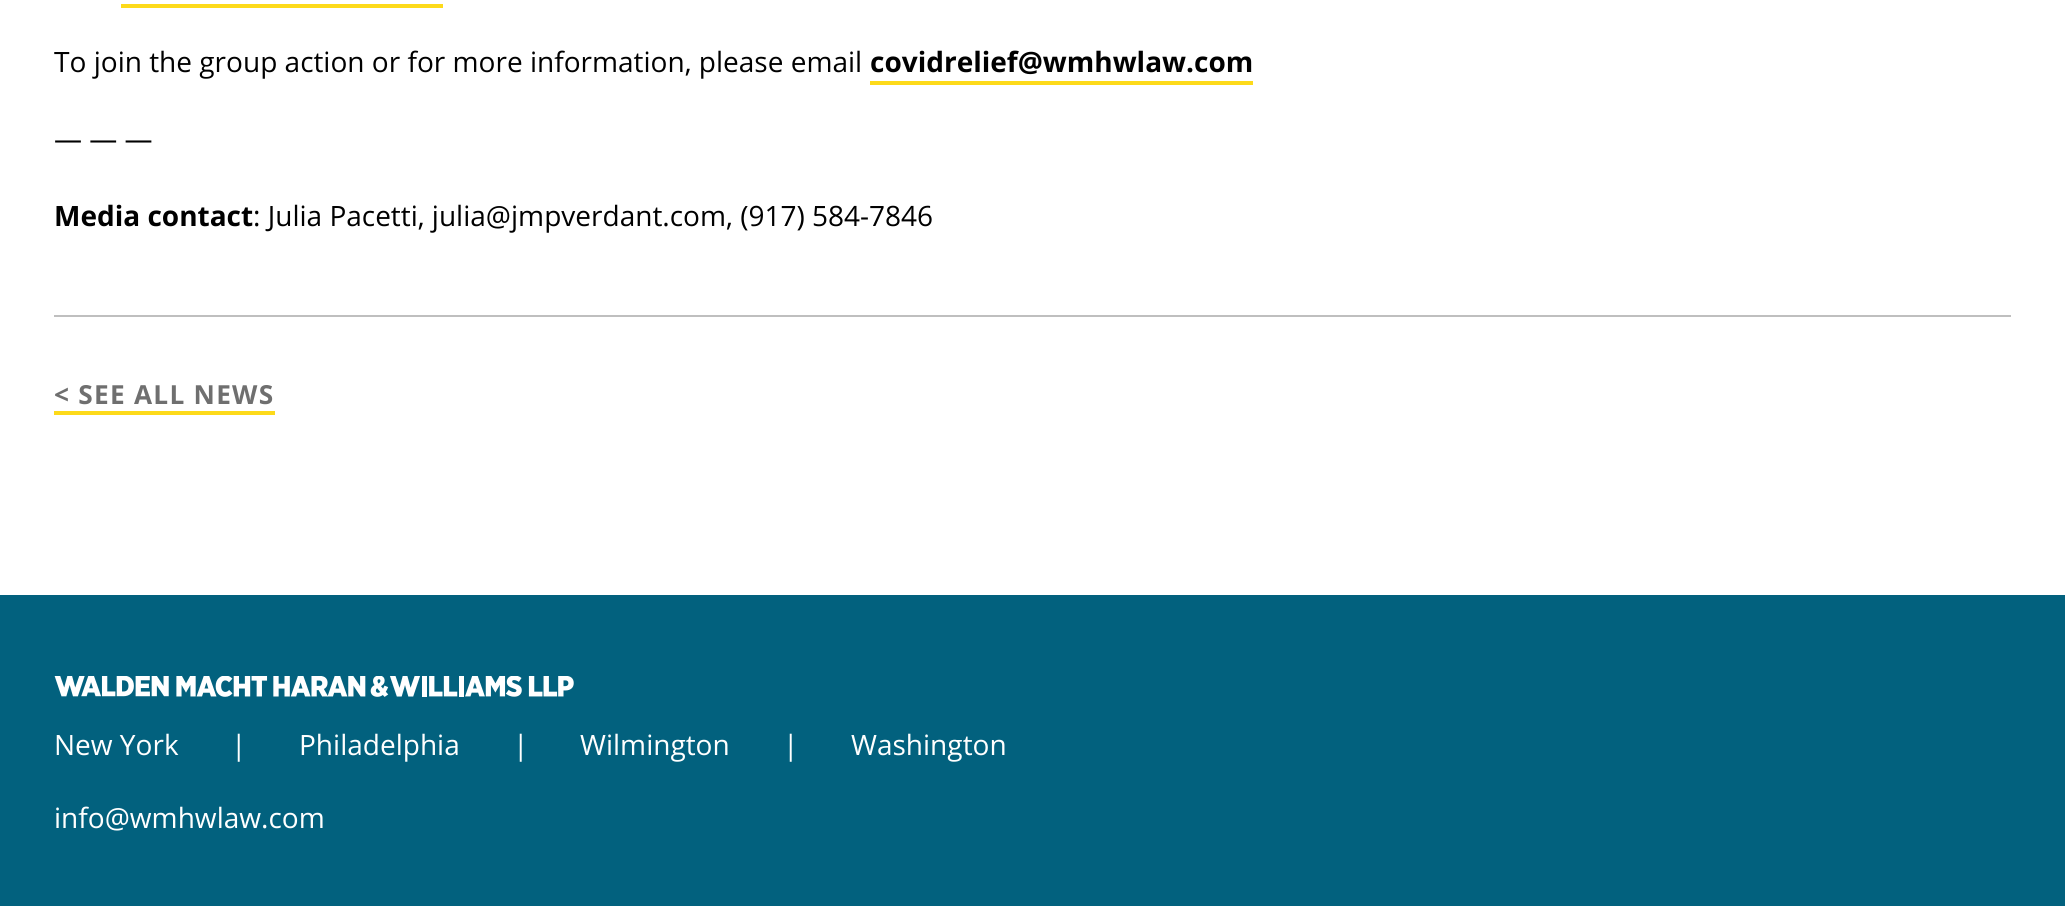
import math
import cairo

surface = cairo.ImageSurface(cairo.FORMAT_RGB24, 2065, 906)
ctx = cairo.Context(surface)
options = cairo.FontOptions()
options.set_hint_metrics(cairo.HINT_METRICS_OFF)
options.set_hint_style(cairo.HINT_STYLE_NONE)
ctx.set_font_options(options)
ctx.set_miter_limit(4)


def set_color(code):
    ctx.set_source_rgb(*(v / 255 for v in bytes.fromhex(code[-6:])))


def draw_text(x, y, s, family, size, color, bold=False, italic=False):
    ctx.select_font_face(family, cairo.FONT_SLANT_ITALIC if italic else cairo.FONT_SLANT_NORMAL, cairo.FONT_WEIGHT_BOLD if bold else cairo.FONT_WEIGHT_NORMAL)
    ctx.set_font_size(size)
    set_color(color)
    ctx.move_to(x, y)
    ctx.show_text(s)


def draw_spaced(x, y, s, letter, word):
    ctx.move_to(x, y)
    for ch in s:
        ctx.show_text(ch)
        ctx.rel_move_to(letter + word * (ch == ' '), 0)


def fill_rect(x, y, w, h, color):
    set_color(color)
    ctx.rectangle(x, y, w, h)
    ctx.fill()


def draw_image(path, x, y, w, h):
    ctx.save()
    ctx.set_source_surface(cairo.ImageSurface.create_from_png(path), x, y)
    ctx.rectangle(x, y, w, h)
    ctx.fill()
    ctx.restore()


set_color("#ffffff")
ctx.paint()
fill_rect(54, 315, 1957, 2, "#bfbfbf")
fill_rect(121, 4, 322, 4, "#fdda1a")
draw_text(54, 72, "To join the group action or for more information, please email", "Open Sans", 28, "#000000")
draw_text(870, 72, "covidrelief@wmhwlaw.com", "Open Sans", 28, "#000000", bold=True)
fill_rect(870, 81, 383, 4, "#fdda1a")
draw_text(54, 149, "— — —", "Open Sans", 28, "#000000")
draw_text(54, 226, "Media contact", "Open Sans", 28, "#000000", bold=True)
draw_text(253, 226, ": Julia Pacetti, julia@jmpverdant.com, (917) 584-7846", "Open Sans", 28, "#000000")
ctx.select_font_face("Open Sans", cairo.FONT_SLANT_NORMAL, cairo.FONT_WEIGHT_BOLD)
ctx.set_font_size(26.25)
set_color("#6f6f6f")
draw_spaced(54, 404, "< SEE ALL NEWS", 1.25, 0)
fill_rect(54, 411, 221, 4, "#fdda1a")
fill_rect(0, 595, 2065, 311, "#02617e")
draw_image("assets/img1.png", 54, 676, 520, 21)
draw_text(54, 755, "New York", "Open Sans", 28, "#ffffff")
draw_text(231, 755, "|", "Open Sans", 28, "#ffffff")
draw_text(299, 755, "Philadelphia", "Open Sans", 28, "#ffffff")
draw_text(513, 755, "|", "Open Sans", 28, "#ffffff")
draw_text(580, 755, "Wilmington", "Open Sans", 28, "#ffffff")
draw_text(783, 755, "|", "Open Sans", 28, "#ffffff")
draw_text(851, 755, "Washington", "Open Sans", 28, "#ffffff")
draw_text(54, 828, "info@wmhwlaw.com", "Open Sans", 28, "#ffffff")
surface.write_to_png("output.png")
